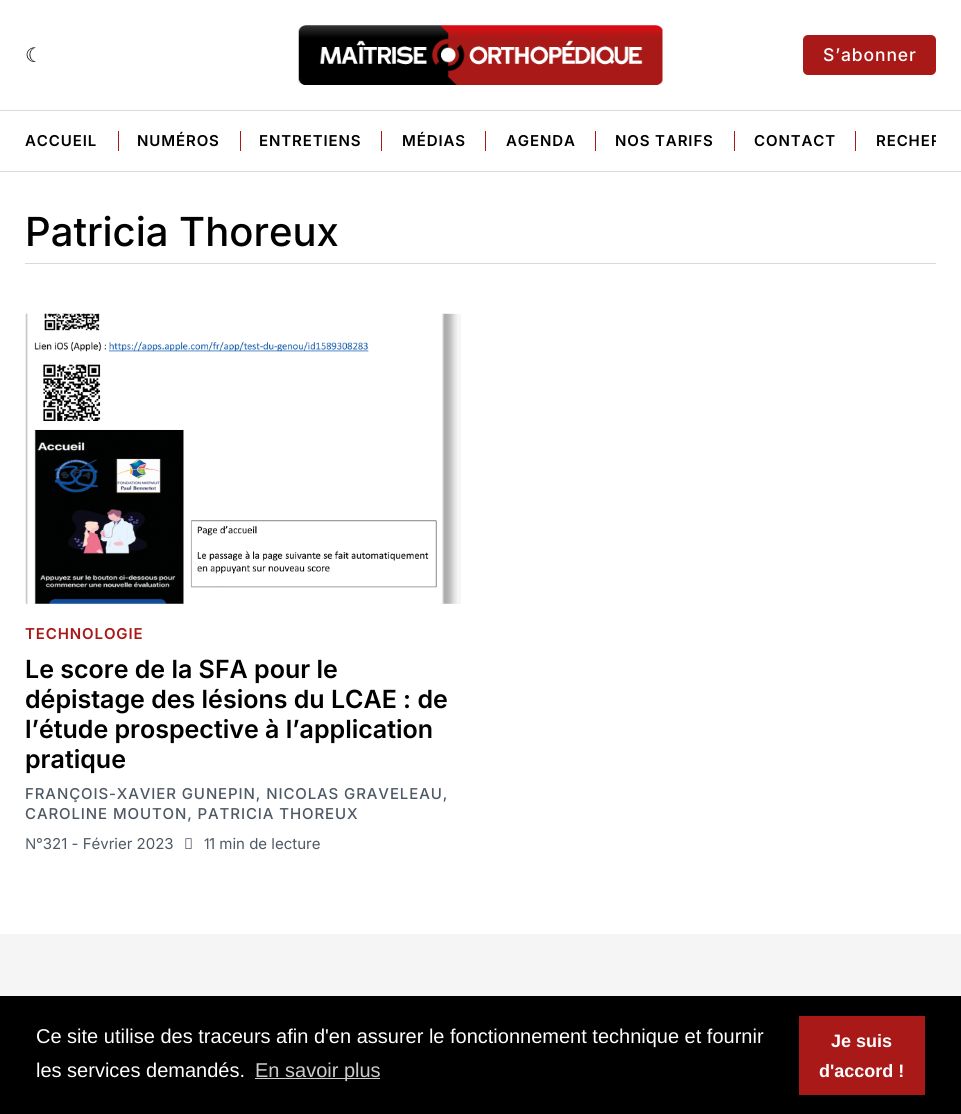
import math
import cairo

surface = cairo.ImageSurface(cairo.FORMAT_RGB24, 961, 1114)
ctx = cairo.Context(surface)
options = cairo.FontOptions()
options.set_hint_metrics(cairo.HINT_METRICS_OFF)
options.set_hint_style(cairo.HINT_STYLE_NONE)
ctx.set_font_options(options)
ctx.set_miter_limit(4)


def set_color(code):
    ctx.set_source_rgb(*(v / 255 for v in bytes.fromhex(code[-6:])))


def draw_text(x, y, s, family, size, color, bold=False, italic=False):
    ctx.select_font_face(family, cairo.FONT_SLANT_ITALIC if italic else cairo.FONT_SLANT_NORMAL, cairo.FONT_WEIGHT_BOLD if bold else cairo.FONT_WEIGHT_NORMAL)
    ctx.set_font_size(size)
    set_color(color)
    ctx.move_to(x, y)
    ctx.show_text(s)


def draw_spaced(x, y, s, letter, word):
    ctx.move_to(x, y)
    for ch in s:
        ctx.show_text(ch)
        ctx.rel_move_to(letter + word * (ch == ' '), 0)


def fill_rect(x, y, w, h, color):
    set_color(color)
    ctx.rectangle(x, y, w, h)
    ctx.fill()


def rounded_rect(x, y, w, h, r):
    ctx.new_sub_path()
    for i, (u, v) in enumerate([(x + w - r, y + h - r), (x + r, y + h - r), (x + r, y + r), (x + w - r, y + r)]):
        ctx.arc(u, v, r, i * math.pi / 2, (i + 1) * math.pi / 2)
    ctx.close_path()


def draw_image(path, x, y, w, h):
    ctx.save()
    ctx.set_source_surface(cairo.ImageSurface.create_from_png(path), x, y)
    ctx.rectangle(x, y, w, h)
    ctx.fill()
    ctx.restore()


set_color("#ffffff")
ctx.paint()
fill_rect(0, 171, 961, 1, "#d9d9d9")
fill_rect(0, 110, 961, 1, "#d9d9d9")
ctx.select_font_face("DejaVu Sans")
ctx.set_font_size(20)
set_color("#000000")
draw_spaced(25, 62, "☾", 0.9, 0)
draw_image("assets/img1.png", 298, 25, 365, 60)
set_color("#a81917")
rounded_rect(803, 35, 133, 40, 5)
ctx.fill()
ctx.select_font_face("Inter Medium")
ctx.set_font_size(17.5)
set_color("#ffffff")
draw_spaced(823, 61, "S’abonner", 0.9, 0)
ctx.select_font_face("Inter SemiBold")
ctx.set_font_size(15)
set_color("#000000")
draw_spaced(25, 146, "ACCUEIL", 0.9, 0)
fill_rect(118, 131, 1, 20, "#a81917")
set_color("#000000")
draw_spaced(137, 146, "NUMÉROS", 0.9, 0)
fill_rect(240, 131, 1, 20, "#a81917")
set_color("#000000")
draw_spaced(259, 146, "ENTRETIENS", 0.9, 0)
fill_rect(381, 131, 1, 20, "#a81917")
set_color("#000000")
draw_spaced(402, 146, "MÉDIAS", 0.9, 0)
fill_rect(485, 131, 1, 20, "#a81917")
set_color("#000000")
draw_spaced(506, 146, "AGENDA", 0.9, 0)
fill_rect(595, 131, 1, 20, "#a81917")
set_color("#000000")
draw_spaced(615, 146, "NOS TARIFS", 0.9, 0)
fill_rect(734, 131, 1, 20, "#a81917")
set_color("#000000")
draw_spaced(754, 146, "CONTACT", 0.9, 0)
fill_rect(855, 131, 1, 20, "#a81917")
ctx.save()
ctx.rectangle(25, 111, 911, 60)
ctx.clip()
set_color("#000000")
draw_spaced(876, 146, "RECHER", 0.9, 0)
ctx.restore()
fill_rect(25, 263, 911, 1, "#d9d9d9")
draw_text(25, 246, "Patricia Thoreux", "Inter Medium", 40, "#000000")
fill_rect(25, 314, 436, 290, "#f5f5f5")
draw_image("assets/img2.png", 25, 313, 432, 291)
ctx.select_font_face("Inter SemiBold")
ctx.set_font_size(15)
set_color("#a81917")
draw_spaced(25, 639, "TECHNOLOGIE", 0.9, 0)
draw_text(25, 678, "Le score de la SFA pour le", "Inter SemiBold", 25, "#000000")
draw_text(25, 708, "dépistage des lésions du LCAE : de", "Inter SemiBold", 25, "#000000")
draw_text(25, 738, "l’étude prospective à l’application", "Inter SemiBold", 25, "#000000")
draw_text(25, 768, "pratique", "Inter SemiBold", 25, "#000000")
ctx.select_font_face("Inter Medium")
ctx.set_font_size(15)
set_color("#4e5965")
draw_spaced(25, 799, "FRANÇOIS-XAVIER GUNEPIN, NICOLAS GRAVELEAU,", 0.9, 0)
draw_spaced(25, 819, "CAROLINE MOUTON, PATRICIA THOREUX", 0.9, 0)
draw_text(25, 849, "N", "Noto Sans", 15, "#4e5965")
draw_text(36, 849, "°321 - Février 2023", "Inter", 15, "#4e5965")
draw_text(184, 849, "●", "Noto Sans", 15, "#4e5965")
draw_text(203, 849, "1", "Noto Sans", 15, "#4e5965")
draw_text(209, 849, "1 min de lecture", "Inter", 15, "#4e5965")
fill_rect(0, 934, 961, 62, "#f5f5f5")
fill_rect(0, 996, 961, 118, "#000000")
draw_text(36, 1043, "Ce site utilise des traceurs afin d'en assurer le fonctionnement technique et fournir", "Liberation Sans", 20, "#ffffff")
draw_text(36, 1077, "les services demandés.", "Liberation Sans", 20, "#ffffff")
fill_rect(255, 1078, 125, 1, "#cccccc")
draw_text(255, 1077, "En savoir plus", "Liberation Sans", 20, "#cccccc")
fill_rect(799, 1016, 126, 79, "#a81917")
draw_text(831, 1047, "Je suis", "Liberation Sans", 18, "#ffffff", bold=True)
draw_text(819, 1077, "d'accord !", "Liberation Sans", 18, "#ffffff", bold=True)
surface.write_to_png("output.png")
